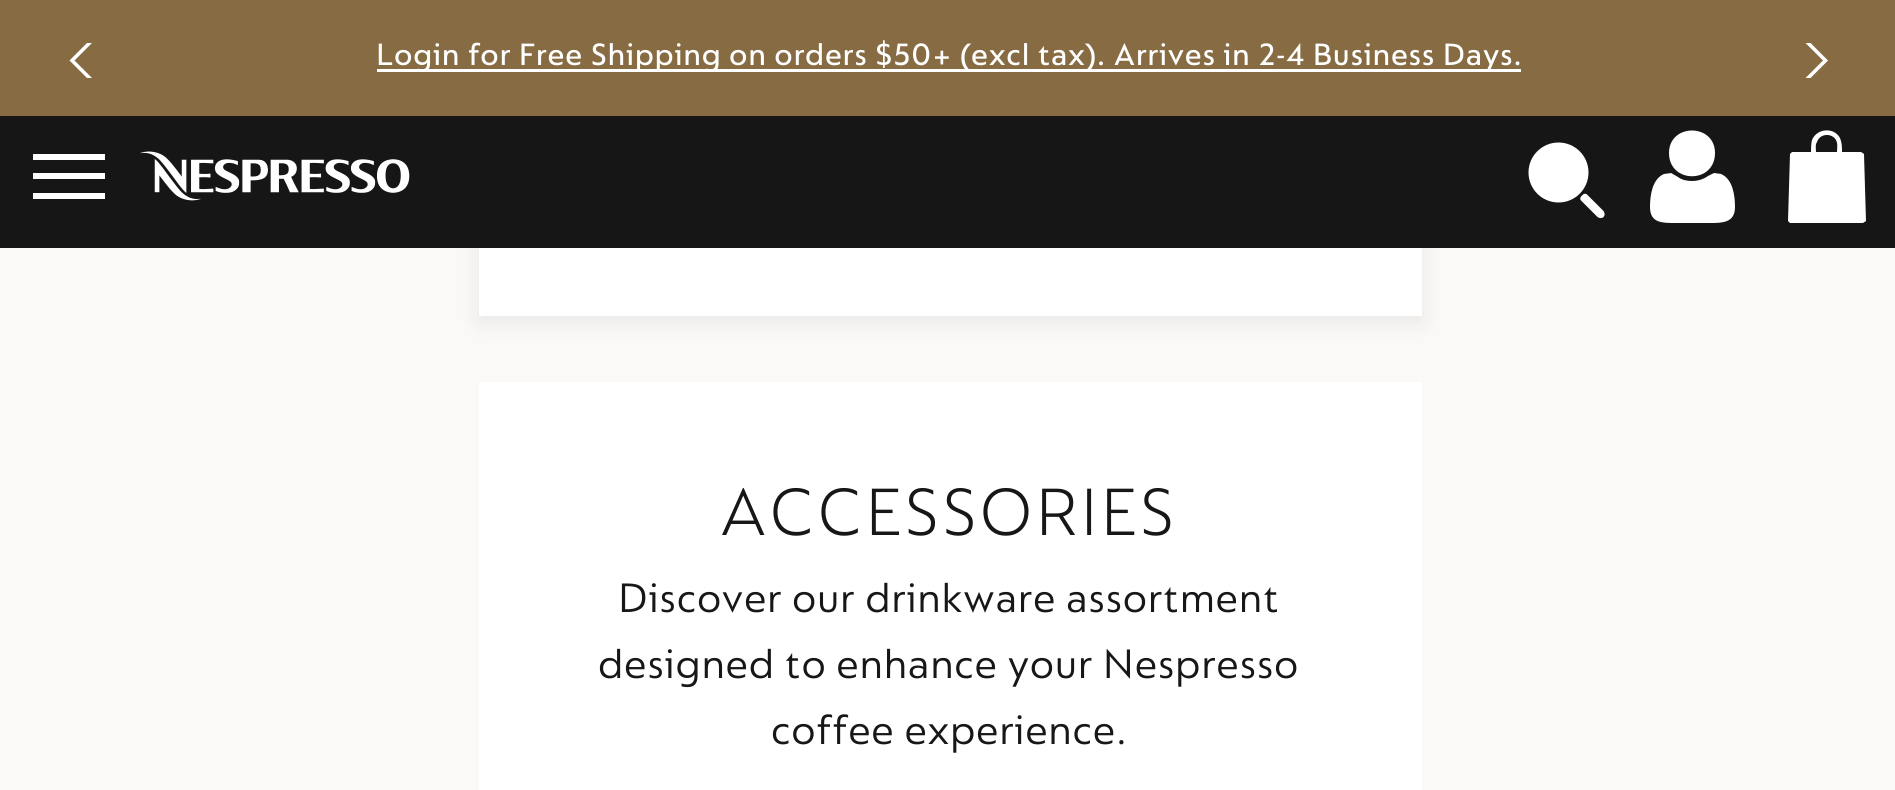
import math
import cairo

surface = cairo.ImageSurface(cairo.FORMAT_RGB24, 1895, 790)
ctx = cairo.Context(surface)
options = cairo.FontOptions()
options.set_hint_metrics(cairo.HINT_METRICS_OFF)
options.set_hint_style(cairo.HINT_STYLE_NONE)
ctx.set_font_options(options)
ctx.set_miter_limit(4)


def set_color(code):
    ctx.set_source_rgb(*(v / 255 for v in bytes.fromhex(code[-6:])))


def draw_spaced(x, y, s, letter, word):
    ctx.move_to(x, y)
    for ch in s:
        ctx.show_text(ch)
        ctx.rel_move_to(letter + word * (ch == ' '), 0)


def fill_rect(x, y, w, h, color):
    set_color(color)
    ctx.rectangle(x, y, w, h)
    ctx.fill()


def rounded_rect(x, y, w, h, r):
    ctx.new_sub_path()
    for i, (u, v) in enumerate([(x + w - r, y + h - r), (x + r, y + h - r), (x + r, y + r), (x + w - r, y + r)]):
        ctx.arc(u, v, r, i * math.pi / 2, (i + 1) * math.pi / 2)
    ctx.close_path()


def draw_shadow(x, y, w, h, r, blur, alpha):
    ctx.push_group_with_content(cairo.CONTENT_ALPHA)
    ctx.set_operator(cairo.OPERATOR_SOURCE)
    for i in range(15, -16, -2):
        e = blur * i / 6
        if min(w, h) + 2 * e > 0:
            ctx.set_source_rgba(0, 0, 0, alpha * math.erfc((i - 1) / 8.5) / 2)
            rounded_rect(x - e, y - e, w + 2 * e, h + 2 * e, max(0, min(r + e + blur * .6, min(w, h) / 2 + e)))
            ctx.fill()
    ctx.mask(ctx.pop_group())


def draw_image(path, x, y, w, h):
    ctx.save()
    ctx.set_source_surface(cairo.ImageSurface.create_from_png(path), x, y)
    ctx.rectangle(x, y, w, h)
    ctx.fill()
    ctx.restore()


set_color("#faf9f8")
ctx.paint()
fill_rect(479, 248, 943, 68, "#ffffff")
ctx.save()
ctx.set_fill_rule(cairo.FILL_RULE_EVEN_ODD)
ctx.new_path()
ctx.move_to(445, 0)
ctx.line_to(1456, 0)
ctx.line_to(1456, 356)
ctx.line_to(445, 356)
ctx.close_path()
ctx.move_to(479, -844)
ctx.line_to(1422, -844)
ctx.line_to(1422, 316)
ctx.line_to(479, 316)
ctx.close_path()
ctx.clip()
set_color("#17171a")
draw_shadow(479, -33, 943, 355, 0, 11, 0.08)
ctx.restore()
fill_rect(0, 116, 1895, 132, "#161616")
fill_rect(0, 0, 1895, 116, "#876c43")
set_color("#ffffff")
ctx.set_fill_rule(cairo.FILL_RULE_EVEN_ODD)
ctx.new_path()
ctx.move_to(87, 43)
ctx.line_to(92, 43)
ctx.line_to(74.5, 60.5)
ctx.line_to(92, 78)
ctx.line_to(87, 78)
ctx.line_to(69.5, 60.5)
ctx.close_path()
ctx.fill()
fill_rect(377, 69, 1144, 3, "#ffffff")
ctx.select_font_face("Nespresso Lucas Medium")
ctx.set_font_size(33)
draw_spaced(376, 65, "Login for Free Shipping on orders $50+ (excl tax). Arrives in 2-4 Business Days.", 0.7, 0)
ctx.new_path()
ctx.move_to(1810.5, 78)
ctx.line_to(1805.5, 78)
ctx.line_to(1823, 60.5)
ctx.line_to(1805.5, 43)
ctx.line_to(1810.5, 43)
ctx.line_to(1828, 60.5)
ctx.close_path()
ctx.fill()
draw_image("assets/img1.png", 140, 151, 270, 50)
ctx.arc(1558.5, 172.5, 30, 0, 2 * math.pi)
ctx.fill()
ctx.set_fill_rule(cairo.FILL_RULE_WINDING)
ctx.new_path()
ctx.move_to(1581, 200.5)
ctx.curve_to(1580, 199.5, 1580, 197.5, 1581, 196.5)
ctx.line_to(1583, 194.5)
ctx.curve_to(1584, 193.5, 1586, 193.5, 1587, 194.5)
ctx.line_to(1603.5, 211)
ctx.curve_to(1605, 213, 1605, 215.5, 1603.5, 217)
ctx.curve_to(1602, 218.5, 1599.5, 218.5, 1597.5, 217)
ctx.close_path()
ctx.fill()
ctx.new_path()
ctx.move_to(1735, 207)
ctx.curve_to(1735, 223, 1722, 223, 1710, 223)
ctx.line_to(1675, 223)
ctx.curve_to(1662, 223, 1650, 223, 1650, 207)
ctx.curve_to(1650, 196, 1652, 179, 1664, 174)
ctx.line_to(1671, 173)
ctx.line_to(1678, 177)
ctx.curve_to(1682, 180, 1687, 181, 1692, 181)
ctx.curve_to(1698, 181, 1704, 179, 1708, 176)
ctx.line_to(1714, 173)
ctx.line_to(1721, 174)
ctx.curve_to(1733, 179, 1735, 196, 1735, 207)
ctx.close_path()
ctx.move_to(1715, 153)
ctx.curve_to(1715, 184, 1669, 184, 1669, 153)
ctx.curve_to(1669, 123, 1715, 123, 1715, 153)
ctx.close_path()
ctx.fill()
ctx.new_path()
ctx.move_to(1864, 154)
ctx.line_to(1861, 152)
ctx.line_to(1842, 152)
ctx.curve_to(1842, 147, 1842, 143, 1840, 138)
ctx.curve_to(1834, 127, 1817, 128, 1812, 140)
ctx.curve_to(1811, 144, 1811, 148, 1811, 152)
ctx.line_to(1792, 152)
ctx.line_to(1790, 154)
ctx.line_to(1788, 221)
ctx.line_to(1790, 223)
ctx.line_to(1863, 223)
ctx.line_to(1866, 221)
ctx.close_path()
ctx.move_to(1837, 152)
ctx.line_to(1816, 152)
ctx.curve_to(1816, 149, 1815, 145, 1817, 142)
ctx.curve_to(1820, 133, 1832, 133, 1836, 140)
ctx.curve_to(1838, 144, 1837, 148, 1837, 152)
ctx.close_path()
ctx.fill()
fill_rect(33, 173, 72, 6, "#ffffff")
fill_rect(33, 154, 72, 6, "#ffffff")
fill_rect(33, 193, 72, 6, "#ffffff")
fill_rect(479, 382, 943, 408, "#ffffff")
ctx.select_font_face("Nespresso Lucas Light")
ctx.set_font_size(71.5)
set_color("#17171a")
draw_spaced(720, 535, "ACCESSORIES", 2.75, 0)
ctx.select_font_face("Nespresso Lucas")
ctx.set_font_size(44)
draw_spaced(618, 612, "Discover our drinkware assortment", 0.7, 0)
draw_spaced(598, 678, "designed to enhance your Nespresso", 0.7, 0)
draw_spaced(771, 744, "coffee experience.", 0.7, 0)
surface.write_to_png("output.png")
